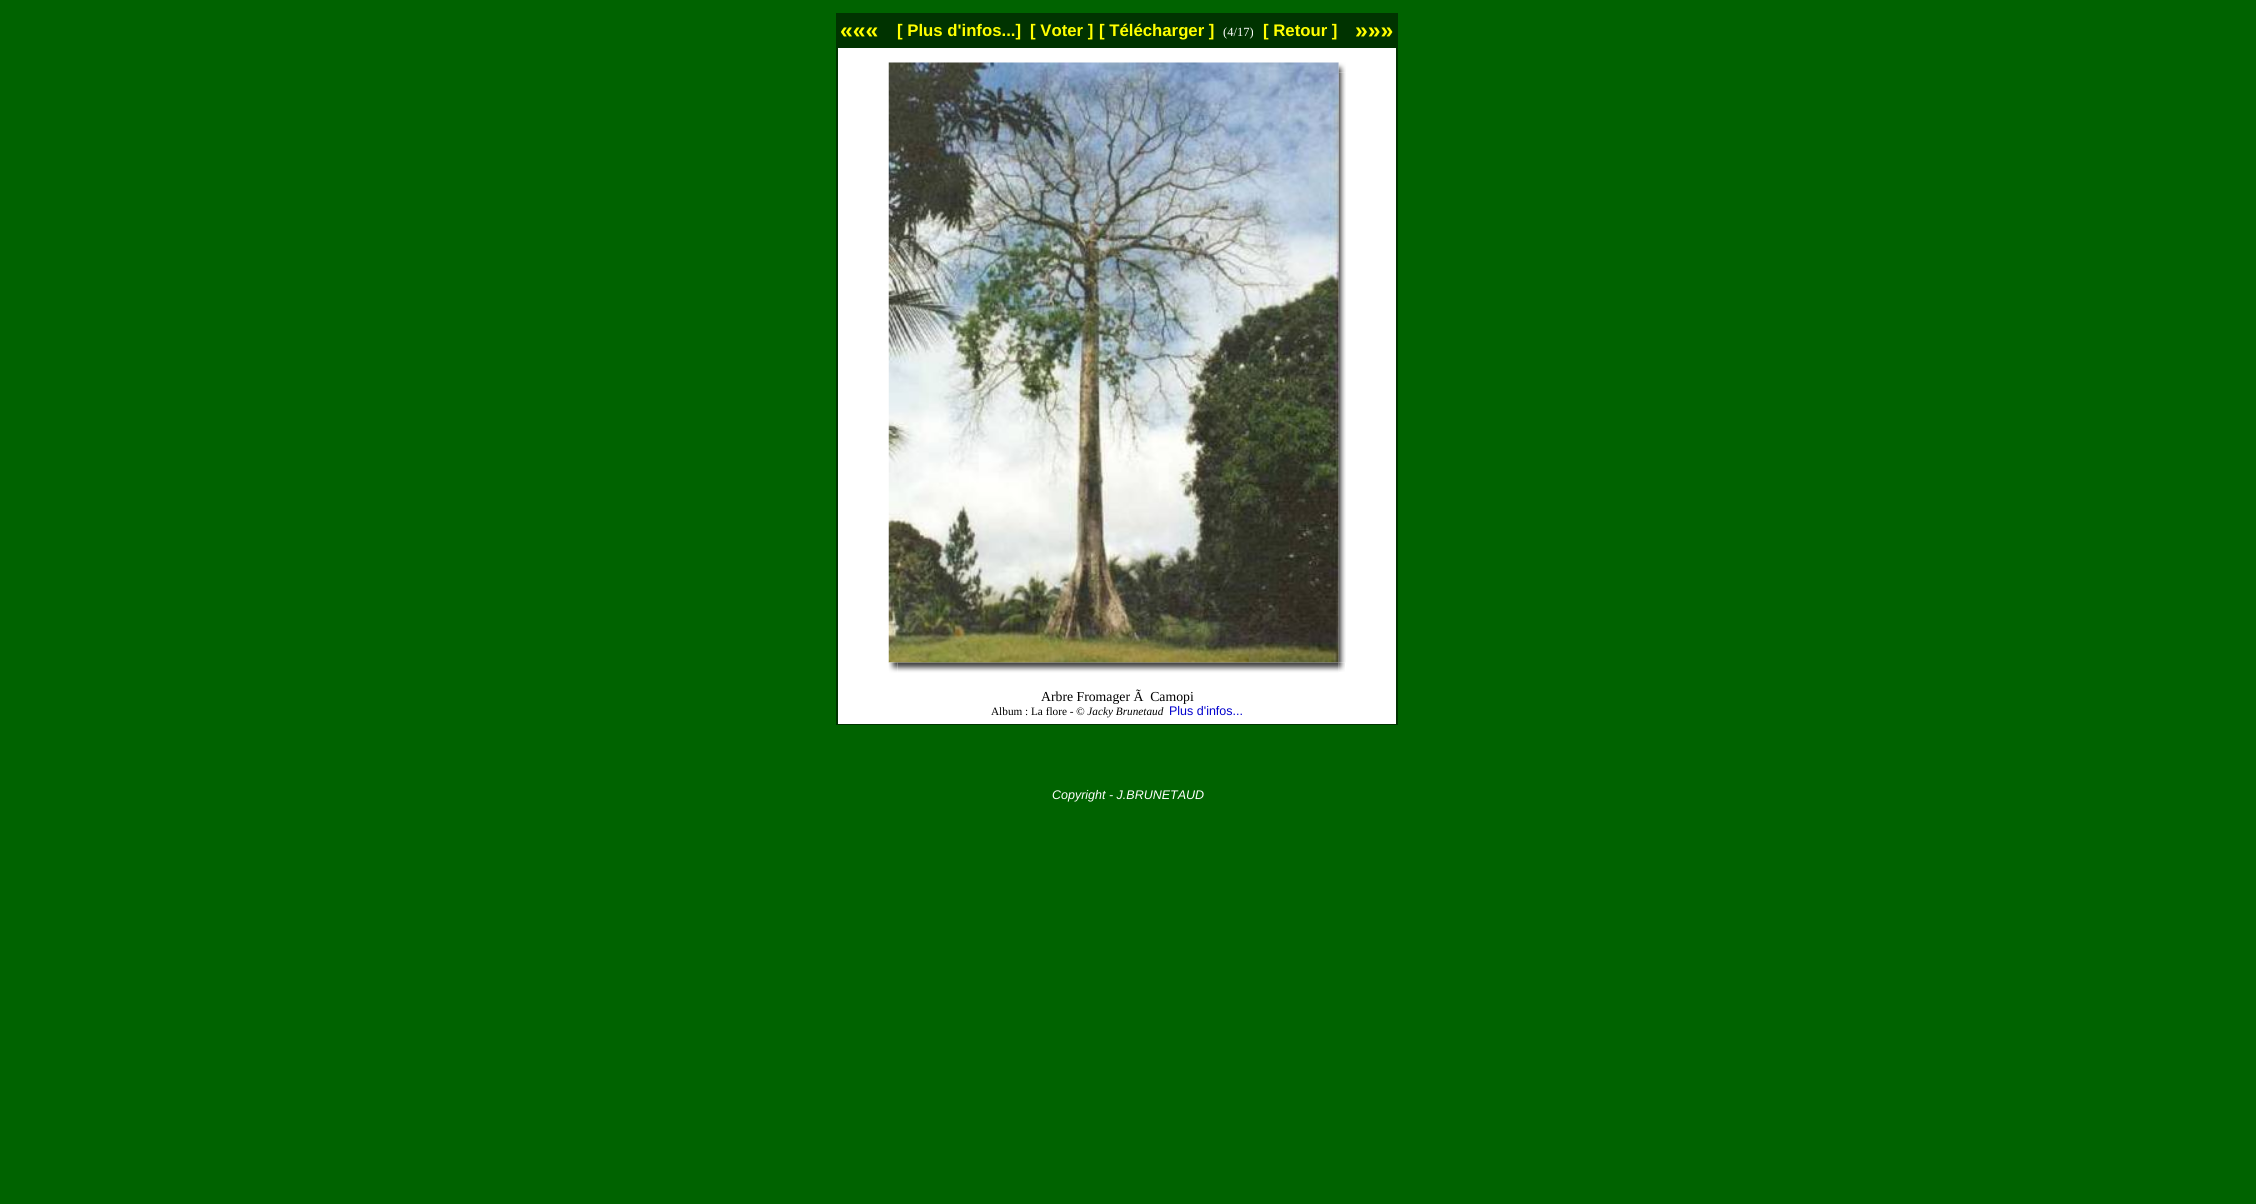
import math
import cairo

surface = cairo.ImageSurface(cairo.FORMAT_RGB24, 2256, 1204)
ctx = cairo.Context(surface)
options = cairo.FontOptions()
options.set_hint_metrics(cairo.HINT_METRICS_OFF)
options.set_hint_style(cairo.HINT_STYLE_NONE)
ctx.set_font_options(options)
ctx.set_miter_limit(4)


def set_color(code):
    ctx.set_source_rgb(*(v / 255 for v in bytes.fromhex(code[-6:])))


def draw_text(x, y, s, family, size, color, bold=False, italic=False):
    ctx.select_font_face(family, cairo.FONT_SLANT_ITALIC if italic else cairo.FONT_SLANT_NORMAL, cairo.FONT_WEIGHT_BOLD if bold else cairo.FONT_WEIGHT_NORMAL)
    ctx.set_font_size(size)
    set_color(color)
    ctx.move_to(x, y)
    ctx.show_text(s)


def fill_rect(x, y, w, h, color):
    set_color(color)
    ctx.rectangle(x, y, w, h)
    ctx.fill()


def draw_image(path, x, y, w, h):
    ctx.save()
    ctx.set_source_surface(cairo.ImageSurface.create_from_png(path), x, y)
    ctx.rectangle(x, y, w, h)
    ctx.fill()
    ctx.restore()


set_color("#006300")
ctx.paint()
fill_rect(836, 13, 562, 712, "#003300")
draw_text(840, 38, "«««", "Liberation Sans", 23, "#ffff00", bold=True)
draw_text(897, 36, "[ Plus d'infos...]", "Liberation Sans", 16.75, "#ffff00", bold=True)
draw_text(1030, 36, "[ Voter ]", "Liberation Sans", 16.75, "#ffff00", bold=True)
draw_text(1099, 36, "[ Télécharger ]", "Liberation Sans", 16.75, "#ffff00", bold=True)
draw_text(1223, 36, "(4/17)", "Liberation Serif", 12.5, "#ffffff")
draw_text(1263, 36, "[ Retour ]", "Liberation Sans", 16.75, "#ffff00", bold=True)
draw_text(1355, 38, "»»»", "Liberation Sans", 23, "#ffff00", bold=True)
fill_rect(838, 48, 558, 676, "#ffffff")
draw_image("assets/img1.png", 888, 62, 451, 601)
draw_image("assets/img2.png", 1338, 62, 8, 11)
draw_image("assets/img3.png", 1338, 72, 8, 591)
draw_image("assets/img4.png", 888, 662, 10, 11)
draw_image("assets/img5.png", 897, 662, 442, 11)
draw_image("assets/img6.png", 1339, 662, 6, 10)
draw_text(1041, 701, "Arbre Fromager Ã  Camopi", "Liberation Serif", 13.75, "#000000")
draw_text(991, 715, "Album : La flore -", "Liberation Serif", 11.25, "#000000")
draw_text(1076, 715, "© Jacky Brunetaud", "Liberation Serif", 11.25, "#000000", italic=True)
draw_text(1169, 715, "Plus d'infos...", "Liberation Sans", 12.5, "#0000cc")
draw_text(1052, 799, "Copyright - J.BRUNETAUD", "Liberation Sans", 12.5, "#ffffff", italic=True)
surface.write_to_png("output.png")
